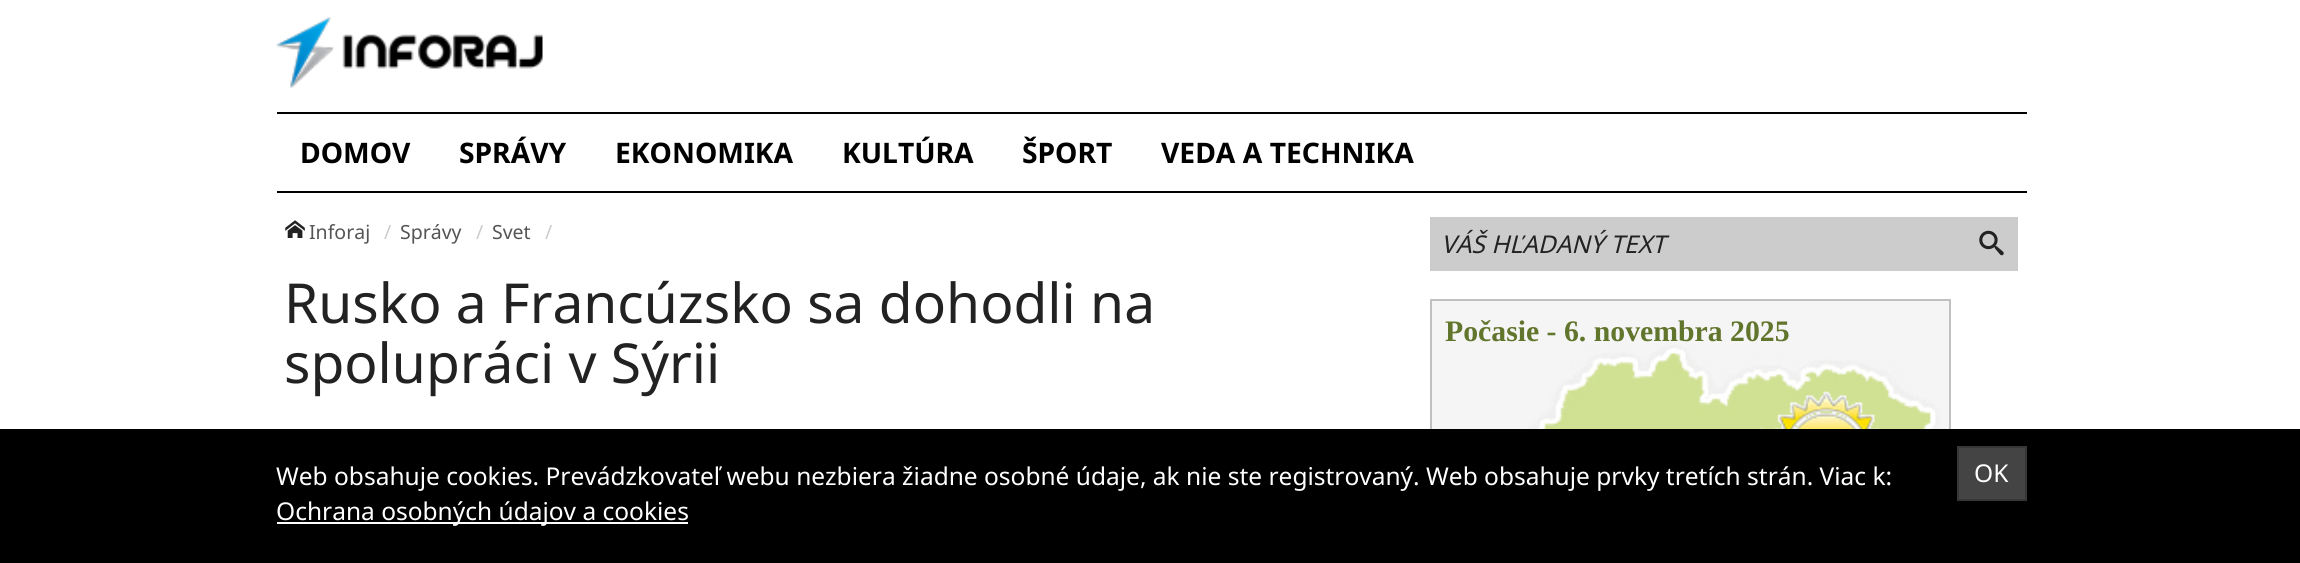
import math
import cairo

surface = cairo.ImageSurface(cairo.FORMAT_RGB24, 2300, 563)
ctx = cairo.Context(surface)
options = cairo.FontOptions()
options.set_hint_metrics(cairo.HINT_METRICS_OFF)
options.set_hint_style(cairo.HINT_STYLE_NONE)
ctx.set_font_options(options)
ctx.set_miter_limit(4)


def set_color(code):
    ctx.set_source_rgb(*(v / 255 for v in bytes.fromhex(code[-6:])))


def draw_text(x, y, s, family, size, color, bold=False, italic=False):
    ctx.select_font_face(family, cairo.FONT_SLANT_ITALIC if italic else cairo.FONT_SLANT_NORMAL, cairo.FONT_WEIGHT_BOLD if bold else cairo.FONT_WEIGHT_NORMAL)
    ctx.set_font_size(size)
    set_color(color)
    ctx.move_to(x, y)
    ctx.show_text(s)


def fill_rect(x, y, w, h, color):
    set_color(color)
    ctx.rectangle(x, y, w, h)
    ctx.fill()


def draw_image(path, x, y, w, h):
    ctx.save()
    ctx.set_source_surface(cairo.ImageSurface.create_from_png(path), x, y)
    ctx.rectangle(x, y, w, h)
    ctx.fill()
    ctx.restore()


set_color("#ffffff")
ctx.paint()
draw_image("assets/img1.png", 276, 17, 267, 71)
fill_rect(277, 112, 1750, 2, "#000000")
fill_rect(277, 191, 1750, 2, "#000000")
draw_text(300, 163, "DOMOV", "Noto Sans", 28.25, "#000000", bold=True)
draw_text(459, 163, "SPRÁVY", "Noto Sans", 28.25, "#000000", bold=True)
draw_text(615, 163, "EKONOMIKA", "Noto Sans", 28.25, "#000000", bold=True)
draw_text(842, 163, "KULTÚRA", "Noto Sans", 28.25, "#000000", bold=True)
draw_text(1022, 163, "ŠPORT", "Noto Sans", 28.25, "#000000", bold=True)
draw_text(1161, 163, "VEDA A TECHNIKA", "Noto Sans", 28.25, "#000000", bold=True)
draw_image("assets/img2.png", 285, 220, 20, 18)
draw_text(309, 239, "Inforaj", "Noto Sans", 19.5, "#555555")
draw_text(384, 239, "/", "Noto Sans", 19.5, "#cccccc")
draw_text(400, 239, "Správy", "Noto Sans", 19.5, "#555555")
draw_text(476, 239, "/", "Noto Sans", 19.5, "#cccccc")
draw_text(492, 239, "Svet", "Noto Sans", 19.5, "#555555")
draw_text(545, 239, "/", "Noto Sans", 19.5, "#cccccc")
draw_text(284, 323, "Rusko a Francúzsko sa dohodli na", "Noto Sans", 55.1, "#222222")
draw_text(284, 383, "spolupráci v Sýrii", "Noto Sans", 55.1, "#222222")
fill_rect(1430, 217, 588, 54, "#cccccc")
draw_text(1441, 253, "VÁŠ HĽADANÝ TEXT", "Noto Sans", 24.5, "#222222", italic=True)
draw_image("assets/img3.png", 1979, 230, 25, 26)
draw_image("assets/img4.png", 1432, 301, 517, 128)
ctx.rectangle(1431, 300, 519, 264)
set_color("#c0c0c0")
ctx.stroke()
draw_text(1445, 341, "Počasie - 6. novembra 2025", "Liberation Serif", 29.75, "#61752c", bold=True)
draw_image("assets/img5.png", 1774, 391, 105, 38)
fill_rect(0, 429, 2300, 134, "#000000")
draw_text(276, 485, "Web obsahuje cookies. Prevádzkovateľ webu nezbiera žiadne osobné údaje, ak nie ste registrovaný. Web obsahuje prvky tretích strán. Viac k:", "Noto Sans", 24.5, "#ffffff")
fill_rect(277, 522, 411, 2, "#ffffff")
draw_text(276, 520, "Ochrana osobných údajov a cookies", "Noto Sans", 24.5, "#ffffff")
set_color("#444444")
ctx.rectangle(1958, 447, 68, 53)
ctx.fill_preserve()
set_color("#373737")
ctx.stroke()
draw_text(1974, 482, "OK", "Noto Sans", 24.5, "#ffffff")
surface.write_to_png("output.png")
